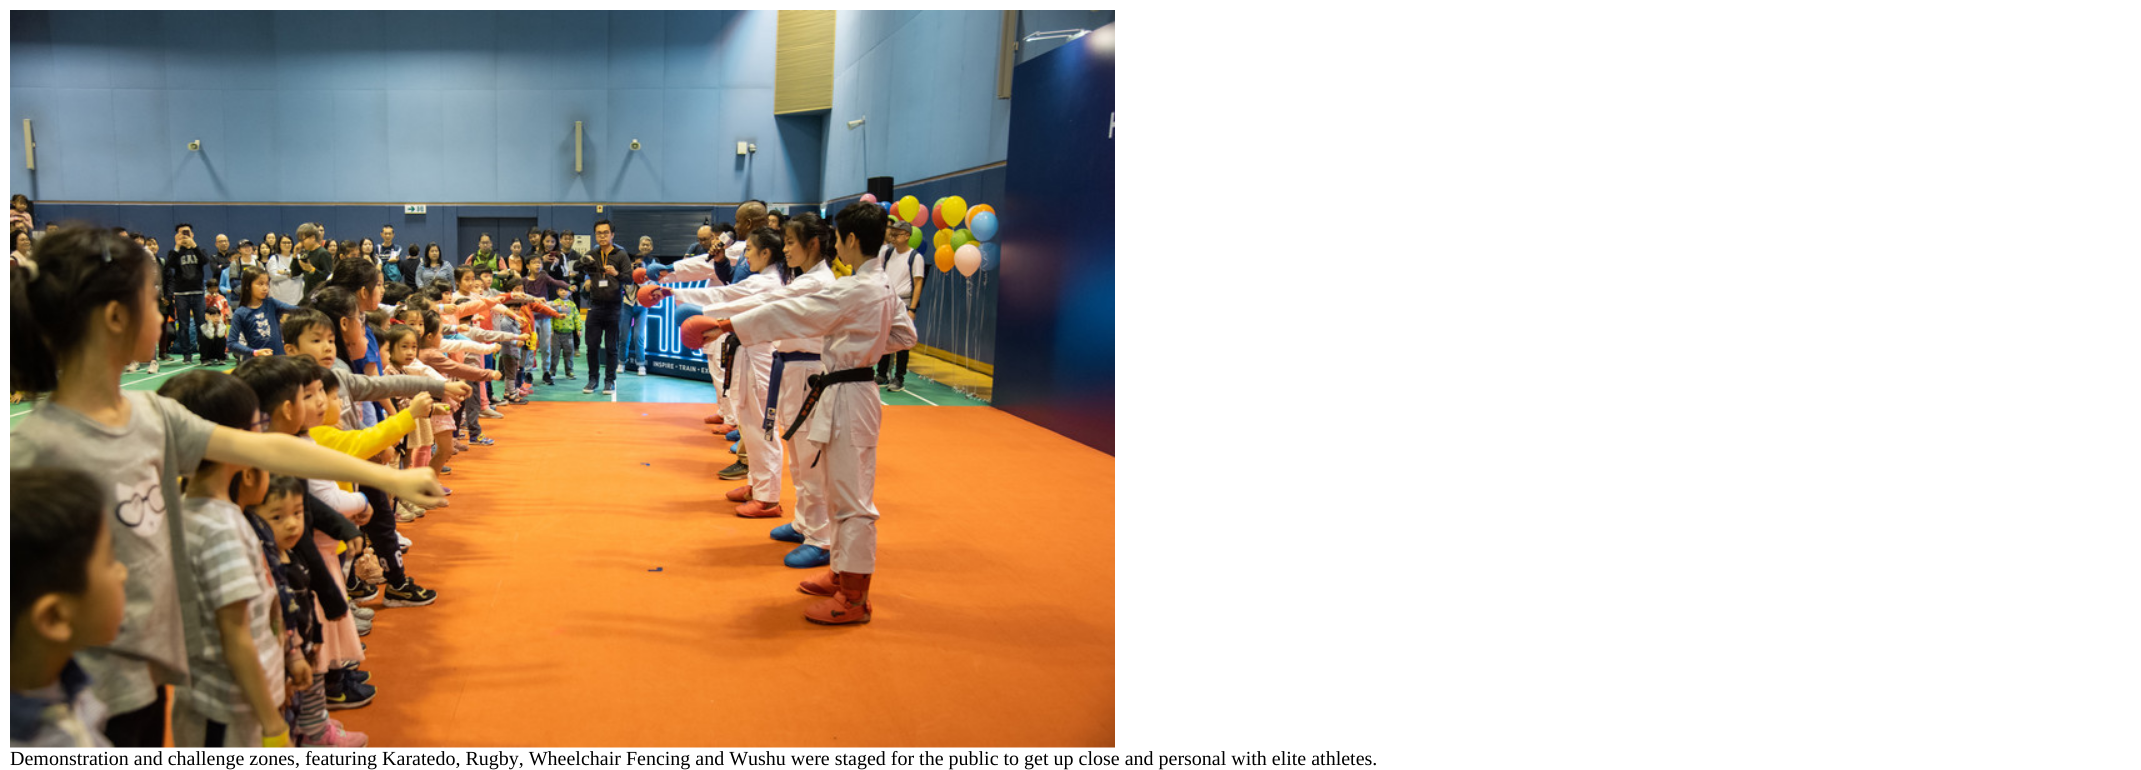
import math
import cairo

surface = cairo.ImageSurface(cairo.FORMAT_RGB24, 2141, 770)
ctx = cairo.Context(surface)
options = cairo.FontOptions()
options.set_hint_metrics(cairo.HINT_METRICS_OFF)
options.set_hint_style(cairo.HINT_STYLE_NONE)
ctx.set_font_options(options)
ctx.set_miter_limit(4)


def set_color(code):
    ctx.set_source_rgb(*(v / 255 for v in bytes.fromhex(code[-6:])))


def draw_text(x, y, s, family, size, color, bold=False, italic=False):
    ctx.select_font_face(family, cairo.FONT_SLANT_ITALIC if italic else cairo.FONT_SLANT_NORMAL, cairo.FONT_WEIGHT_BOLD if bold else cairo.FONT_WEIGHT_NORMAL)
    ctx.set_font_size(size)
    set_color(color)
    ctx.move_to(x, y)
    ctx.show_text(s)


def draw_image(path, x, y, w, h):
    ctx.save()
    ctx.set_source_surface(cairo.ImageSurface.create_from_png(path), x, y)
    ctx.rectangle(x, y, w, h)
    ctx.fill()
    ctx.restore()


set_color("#ffffff")
ctx.paint()
draw_image("assets/img1.png", 10, 10, 1105, 738)
draw_text(10, 765, "Demonstration and challenge zones, featuring Karatedo, Rugby, Wheelchair Fencing and Wushu were staged for the public to get up close and personal with elite athletes.", "Liberation Serif", 20, "#000000")
surface.write_to_png("output.png")
